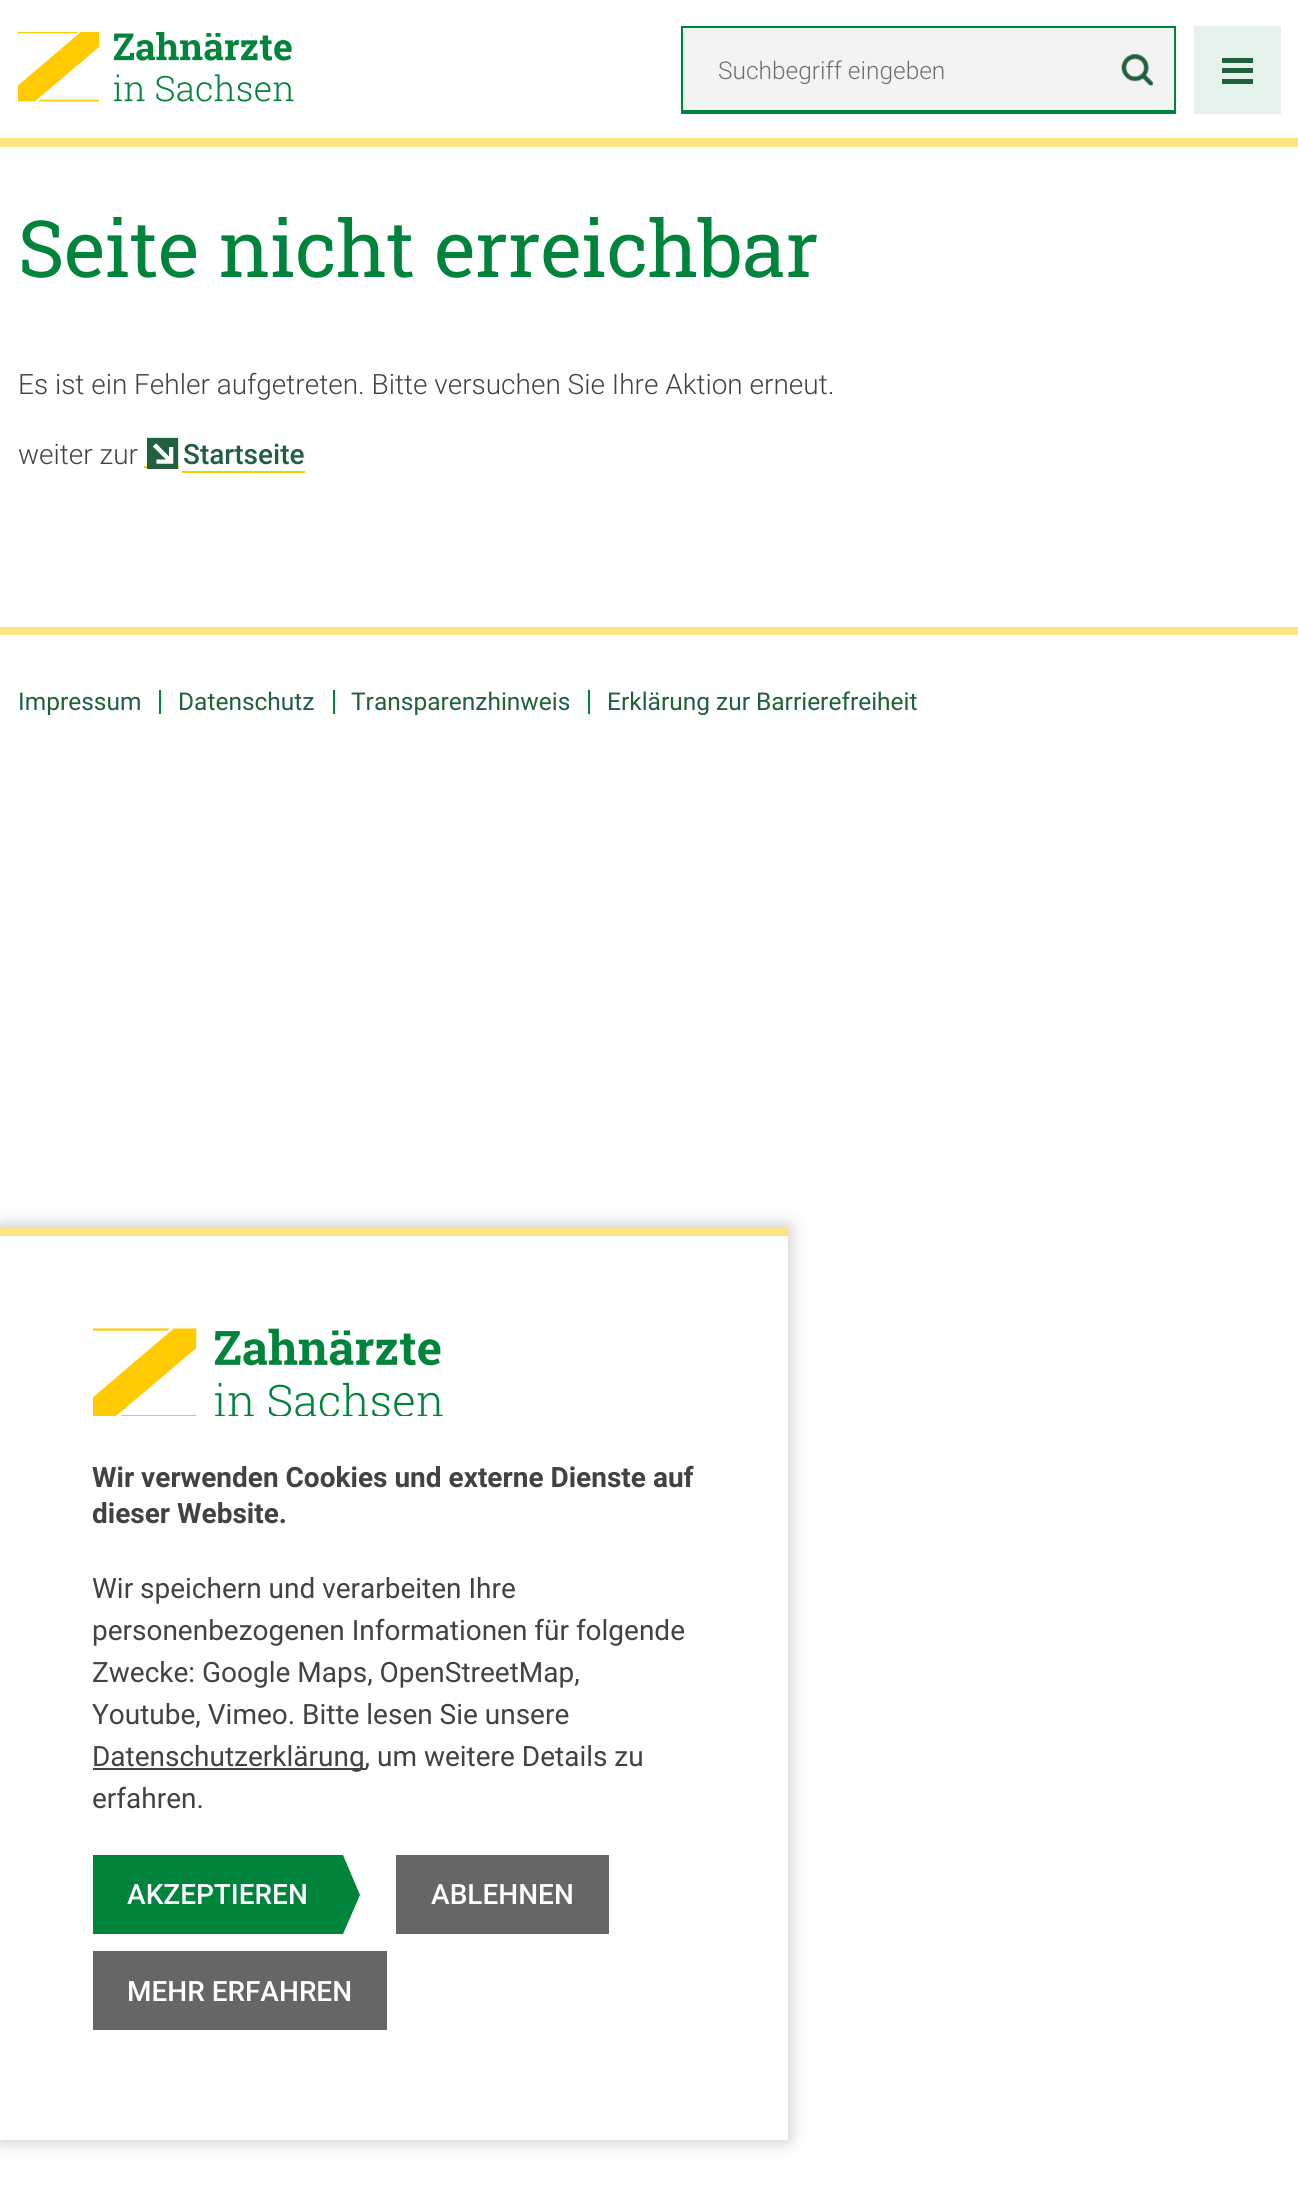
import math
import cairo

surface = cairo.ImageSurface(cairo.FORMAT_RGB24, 1298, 2209)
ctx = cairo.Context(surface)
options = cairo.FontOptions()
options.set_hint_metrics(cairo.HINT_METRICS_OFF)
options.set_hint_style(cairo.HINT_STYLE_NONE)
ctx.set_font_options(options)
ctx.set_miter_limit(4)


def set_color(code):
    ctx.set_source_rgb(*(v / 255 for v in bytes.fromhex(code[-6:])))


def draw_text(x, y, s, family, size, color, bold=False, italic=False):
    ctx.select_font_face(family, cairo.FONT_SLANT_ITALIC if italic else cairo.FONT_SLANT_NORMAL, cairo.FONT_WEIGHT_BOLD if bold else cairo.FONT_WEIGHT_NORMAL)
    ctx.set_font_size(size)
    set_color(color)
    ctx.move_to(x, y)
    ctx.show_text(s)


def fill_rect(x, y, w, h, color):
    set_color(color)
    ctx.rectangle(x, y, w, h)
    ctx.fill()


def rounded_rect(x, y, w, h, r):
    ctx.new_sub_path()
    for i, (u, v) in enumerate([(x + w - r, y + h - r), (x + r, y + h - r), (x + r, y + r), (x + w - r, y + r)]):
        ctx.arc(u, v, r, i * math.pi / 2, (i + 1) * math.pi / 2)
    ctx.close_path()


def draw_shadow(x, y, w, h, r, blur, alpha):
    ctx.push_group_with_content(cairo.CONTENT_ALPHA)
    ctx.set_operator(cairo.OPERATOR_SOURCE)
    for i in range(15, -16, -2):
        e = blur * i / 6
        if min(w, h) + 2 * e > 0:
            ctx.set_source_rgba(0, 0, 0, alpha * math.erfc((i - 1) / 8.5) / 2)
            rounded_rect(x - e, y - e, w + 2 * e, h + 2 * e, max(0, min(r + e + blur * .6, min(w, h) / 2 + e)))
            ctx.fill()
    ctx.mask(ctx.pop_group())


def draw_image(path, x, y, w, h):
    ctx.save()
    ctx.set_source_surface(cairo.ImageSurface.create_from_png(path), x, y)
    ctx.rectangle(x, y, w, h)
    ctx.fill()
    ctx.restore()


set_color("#ffffff")
ctx.paint()
fill_rect(0, 138, 1298, 9, "#fee57f")
draw_image("assets/img1.png", 18, 32, 276, 70)
fill_rect(683, 28, 491, 82, "#f3f3f3")
fill_rect(681, 26, 495, 2, "#00833b")
fill_rect(1174, 26, 2, 88, "#00833b")
fill_rect(681, 110, 495, 4, "#00833b")
fill_rect(681, 26, 2, 88, "#00833b")
ctx.save()
ctx.rectangle(718, 56, 351, 28)
ctx.clip()
draw_text(718, 79, "Suchbegriff eingeben", "Roboto Light", 24.5, "#6f6f6f")
ctx.restore()
draw_image("assets/img2.png", 1121, 54, 33, 32)
fill_rect(1194, 26, 87, 88, "#e5f2eb")
fill_rect(1222, 58, 31, 5, "#20603c")
fill_rect(1222, 68, 31, 5, "#20603c")
fill_rect(1222, 79, 31, 5, "#20603c")
draw_text(18, 277, "Seite nicht erreichbar", "Roboto Slab", 78.75, "#00833b")
draw_text(18, 394, "Es ist ein Fehler aufgetreten. Bitte versuchen Sie Ihre Aktion erneut.", "Roboto Light", 28, "#424242")
draw_text(18, 464, "weiter zur", "Roboto Light", 28, "#424242")
fill_rect(144, 466, 35, 2, "#fecc00")
fill_rect(182, 471, 123, 2, "#fecc00")
draw_image("assets/img3.png", 147, 437, 32, 32)
draw_text(183, 464, "Startseite", "Roboto Medium", 28, "#20603c")
fill_rect(0, 627, 1298, 8, "#fee57f")
draw_text(18, 710, "Impressum", "Roboto", 24.5, "#20603c")
fill_rect(159, 690, 2, 24, "#00833b")
draw_text(178, 710, "Datenschutz", "Roboto", 24.5, "#20603c")
fill_rect(333, 690, 2, 24, "#00833b")
draw_text(351, 710, "Transparenzhinweis", "Roboto", 24.5, "#20603c")
fill_rect(588, 690, 2, 24, "#00833b")
draw_text(607, 710, "Erklärung zur Barrierefreiheit", "Roboto", 24.5, "#20603c")
set_color("#000000")
draw_shadow(0, 1227, 788, 913, 0, 9, 0.25)
fill_rect(0, 1236, 788, 904, "#ffffff")
fill_rect(0, 1227, 788, 9, "#fee57f")
draw_image("assets/img4.png", 93, 1328, 350, 88)
draw_text(92, 1487, "Wir verwenden Cookies und externe Dienste auf", "Roboto", 28, "#424242", bold=True)
draw_text(92, 1523, "dieser Website.", "Roboto", 28, "#424242", bold=True)
draw_text(92, 1598, "Wir speichern und verarbeiten Ihre", "Roboto", 28, "#424242")
draw_text(92, 1640, "personenbezogenen Informationen für folgende", "Roboto", 28, "#424242")
draw_text(92, 1682, "Zwecke: Google Maps, OpenStreetMap,", "Roboto", 28, "#424242")
draw_text(92, 1724, "Youtube, Vimeo. Bitte lesen Sie unsere", "Roboto", 28, "#424242")
fill_rect(93, 1768, 273, 2, "#424242")
draw_text(92, 1766, "Datenschutzerklärung, um weitere Details zu", "Roboto", 28, "#424242")
draw_text(92, 1808, "erfahren.", "Roboto", 28, "#424242")
fill_rect(93, 1855, 250, 79, "#00833b")
draw_text(127, 1904, "AKZEPTIEREN", "Roboto Medium", 28, "#ffffff")
set_color("#00833b")
ctx.new_path()
ctx.move_to(343, 1934)
ctx.line_to(343, 1855)
ctx.line_to(360, 1895)
ctx.close_path()
ctx.fill()
fill_rect(396, 1855, 213, 79, "#666666")
draw_text(431, 1904, "ABLEHNEN", "Roboto Medium", 28, "#ffffff")
fill_rect(93, 1951, 294, 79, "#666666")
draw_text(127, 2001, "MEHR ERFAHREN", "Roboto Medium", 28, "#ffffff")
surface.write_to_png("output.png")
